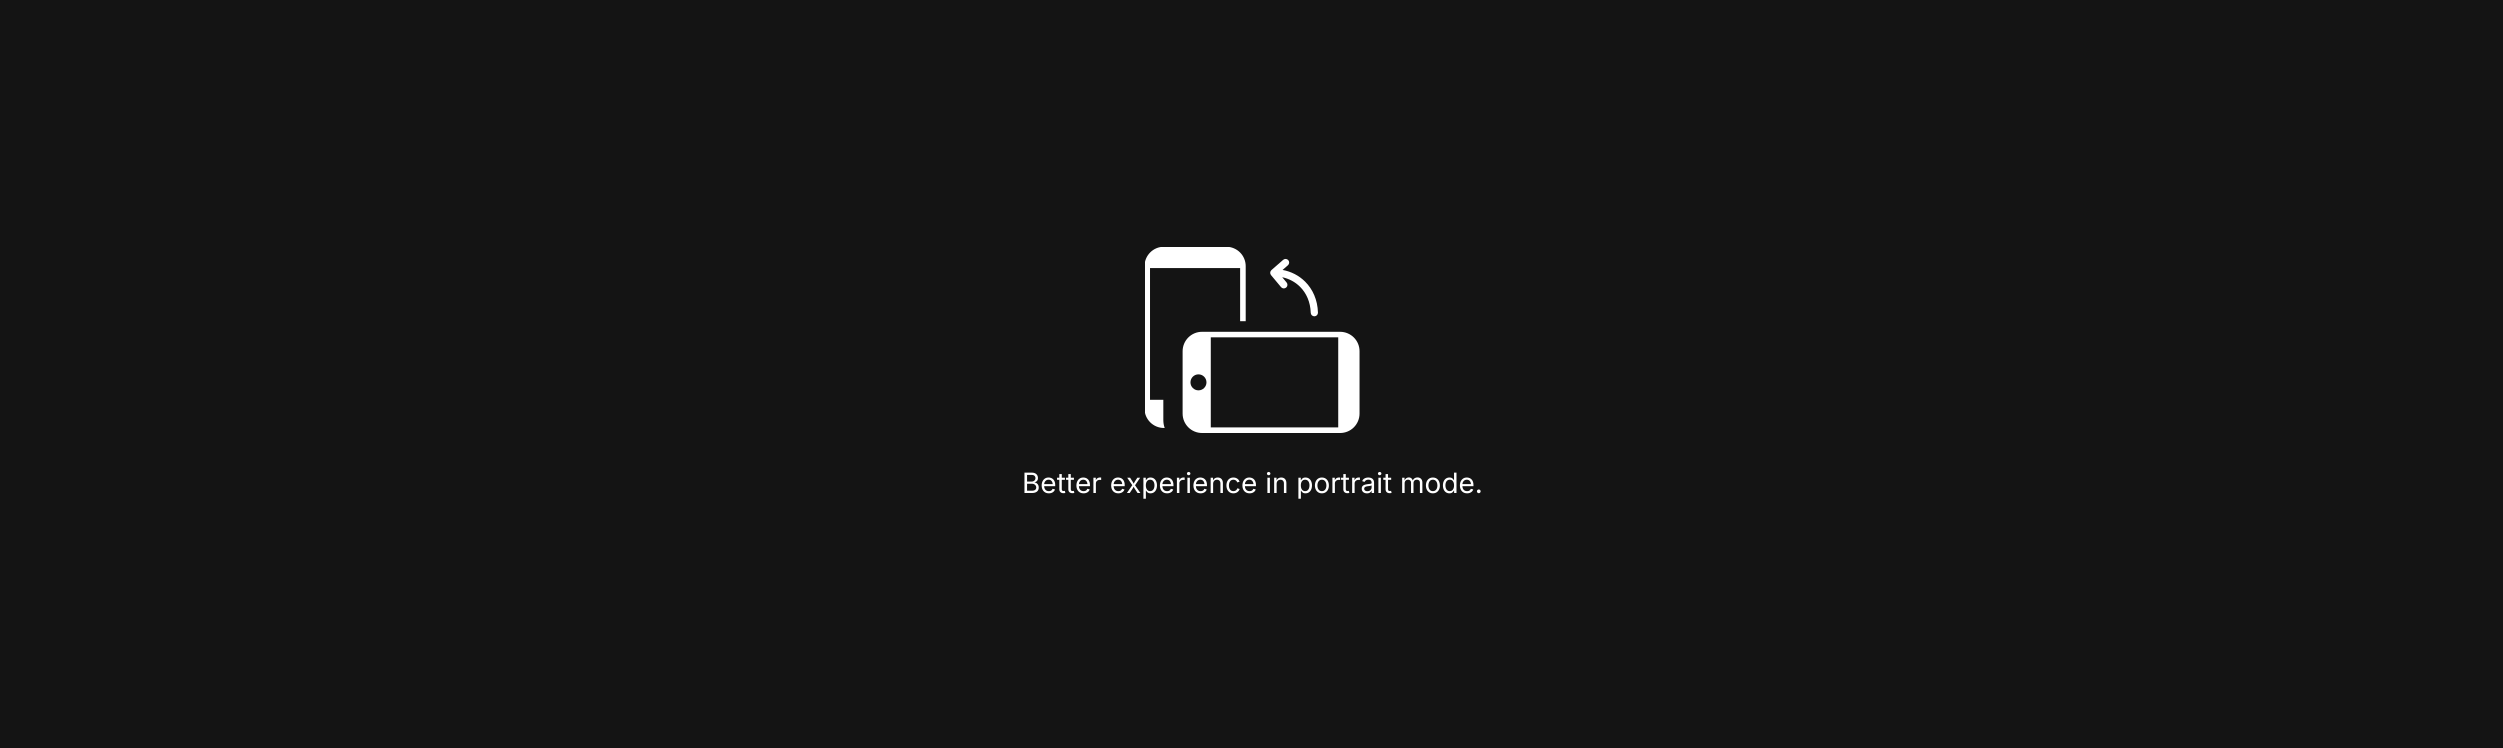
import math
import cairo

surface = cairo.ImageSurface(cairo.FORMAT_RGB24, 2503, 748)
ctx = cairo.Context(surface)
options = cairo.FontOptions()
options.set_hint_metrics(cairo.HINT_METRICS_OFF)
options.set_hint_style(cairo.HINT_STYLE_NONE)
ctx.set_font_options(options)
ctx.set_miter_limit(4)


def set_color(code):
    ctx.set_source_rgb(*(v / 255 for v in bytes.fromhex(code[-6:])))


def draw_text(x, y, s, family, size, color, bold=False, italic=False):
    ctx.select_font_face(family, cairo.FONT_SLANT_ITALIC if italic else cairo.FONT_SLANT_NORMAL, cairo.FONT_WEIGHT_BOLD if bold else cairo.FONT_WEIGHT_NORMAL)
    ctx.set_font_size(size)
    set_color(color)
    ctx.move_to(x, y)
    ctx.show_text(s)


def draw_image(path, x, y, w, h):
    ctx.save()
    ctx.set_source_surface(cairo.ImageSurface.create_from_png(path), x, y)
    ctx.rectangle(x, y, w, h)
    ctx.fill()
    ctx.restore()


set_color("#141414")
ctx.paint()
draw_image("assets/img1.png", 1145, 247, 215, 186)
draw_text(1022, 493, "Better experience in portrait mode.", "Inter", 28, "#ffffff")
surface.write_to_png("output.png")
